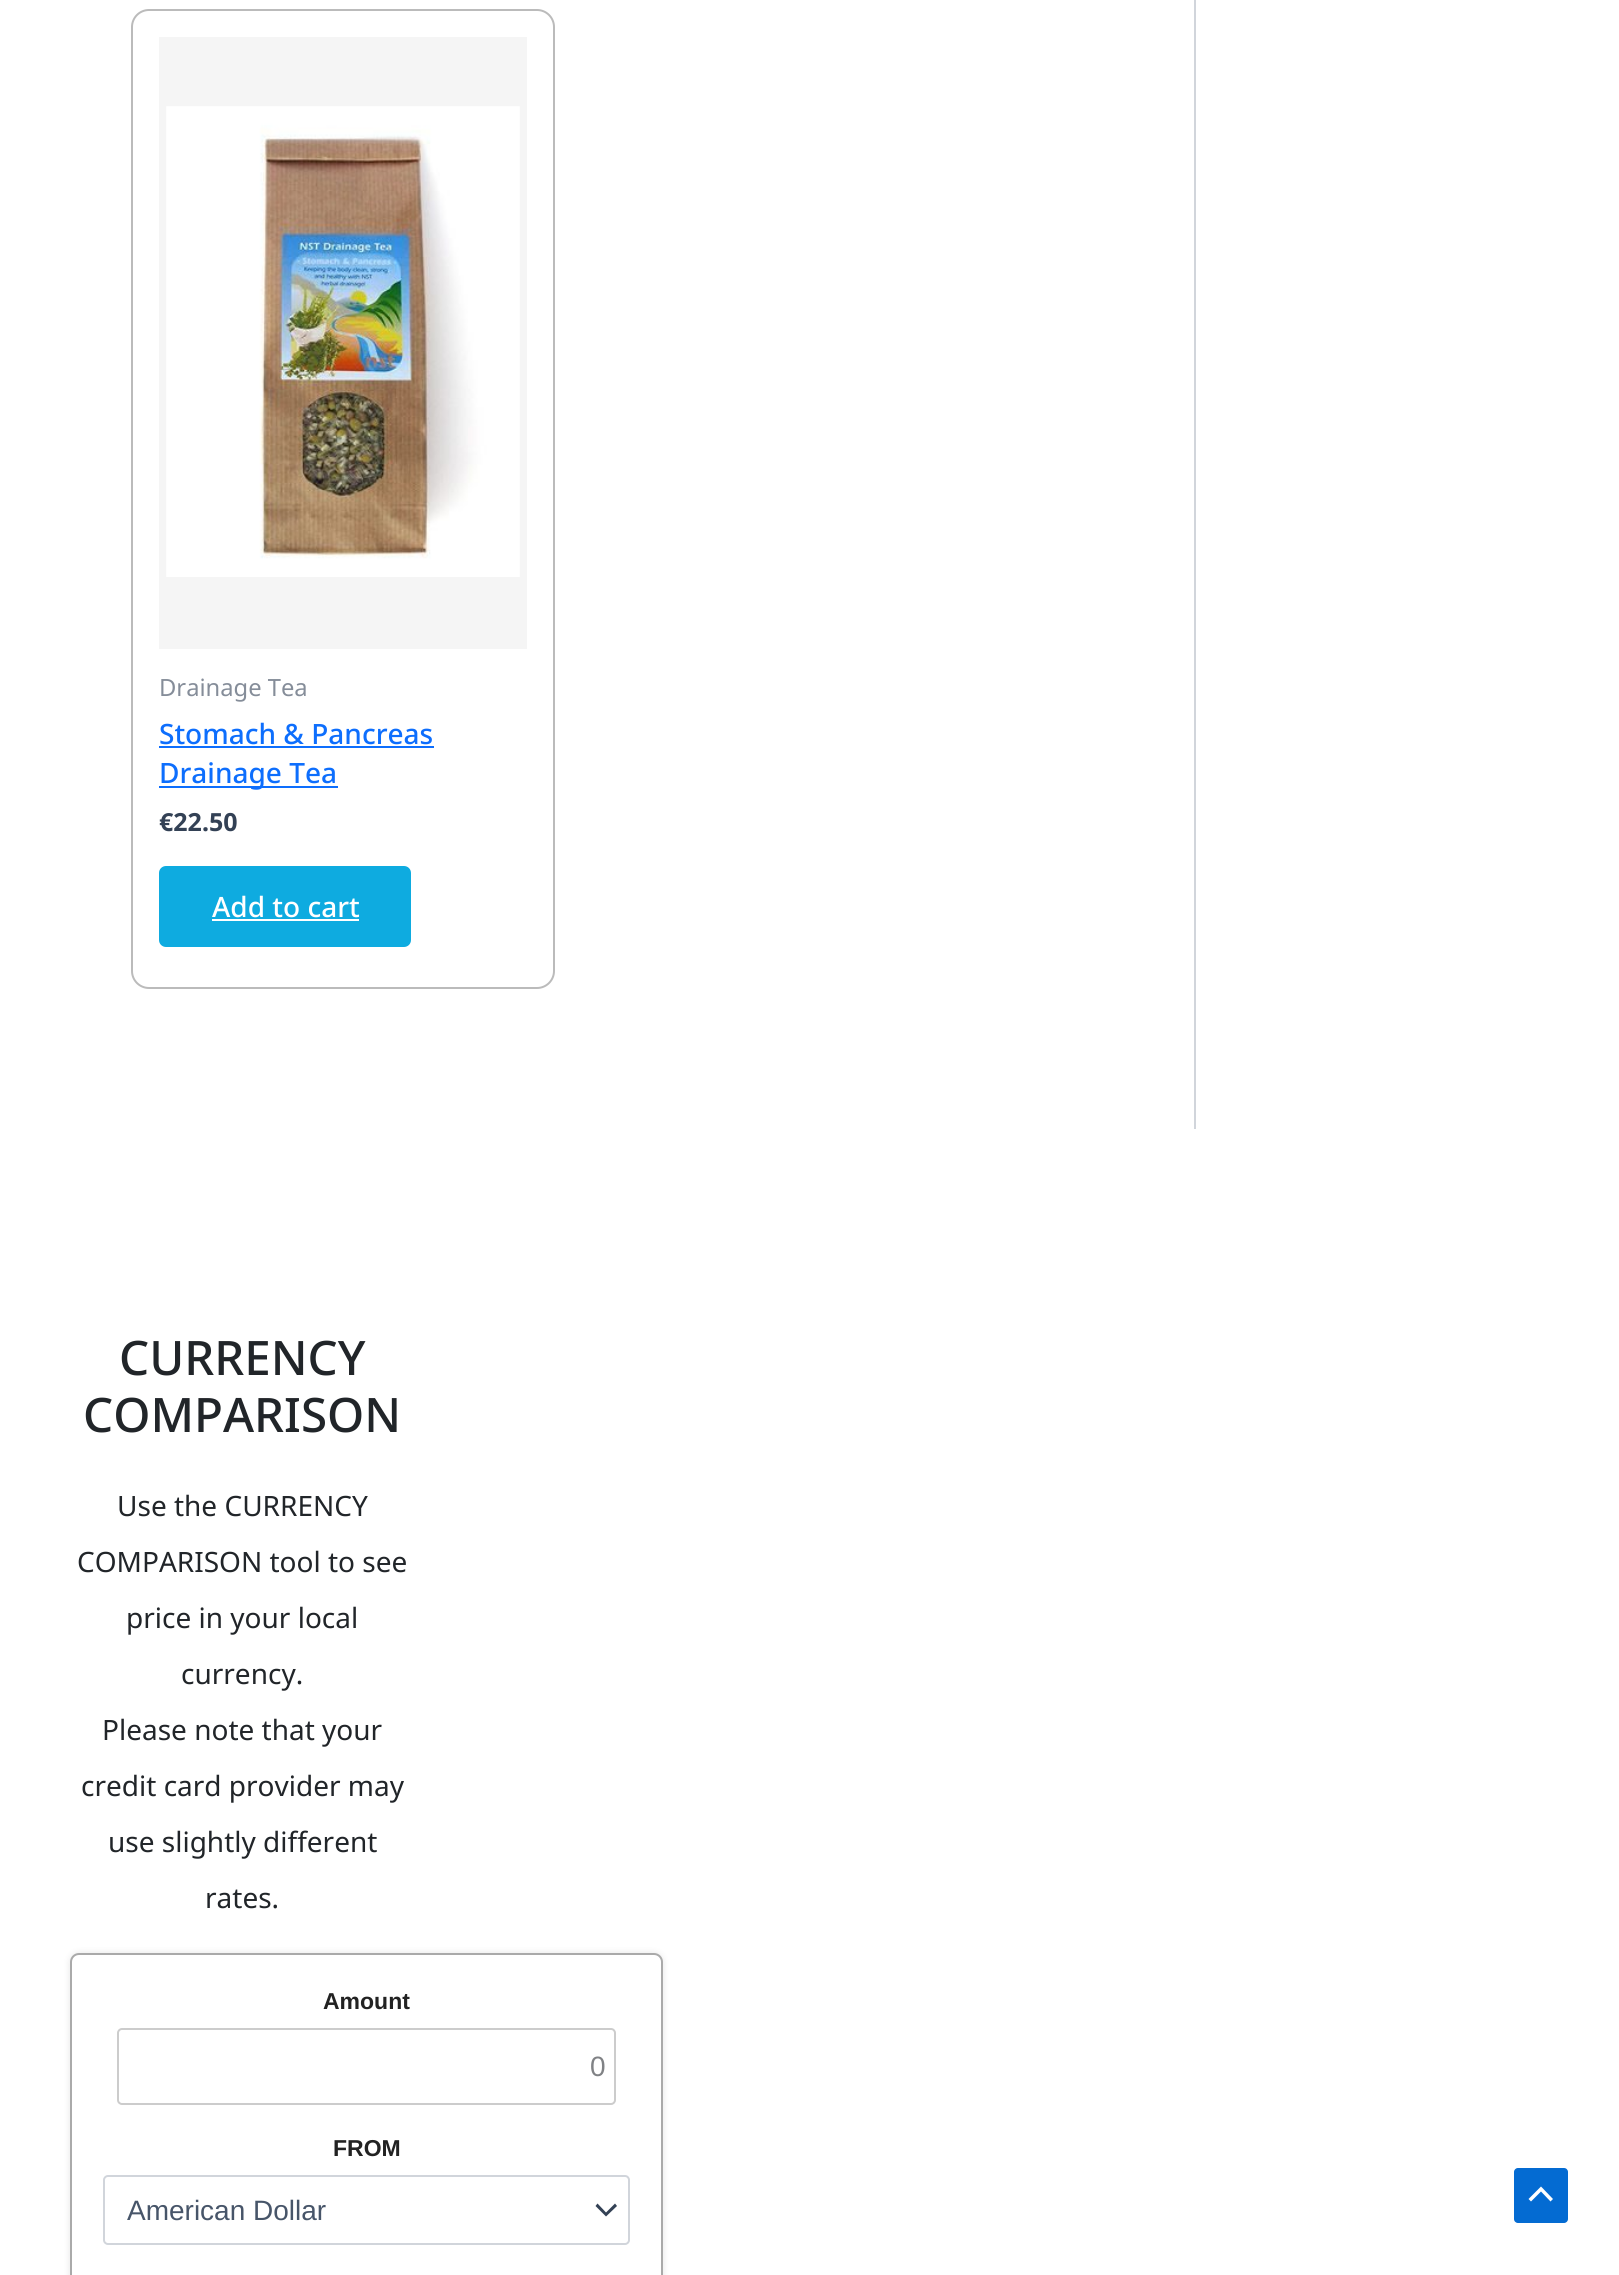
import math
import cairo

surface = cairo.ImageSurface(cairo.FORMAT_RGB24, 1619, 2275)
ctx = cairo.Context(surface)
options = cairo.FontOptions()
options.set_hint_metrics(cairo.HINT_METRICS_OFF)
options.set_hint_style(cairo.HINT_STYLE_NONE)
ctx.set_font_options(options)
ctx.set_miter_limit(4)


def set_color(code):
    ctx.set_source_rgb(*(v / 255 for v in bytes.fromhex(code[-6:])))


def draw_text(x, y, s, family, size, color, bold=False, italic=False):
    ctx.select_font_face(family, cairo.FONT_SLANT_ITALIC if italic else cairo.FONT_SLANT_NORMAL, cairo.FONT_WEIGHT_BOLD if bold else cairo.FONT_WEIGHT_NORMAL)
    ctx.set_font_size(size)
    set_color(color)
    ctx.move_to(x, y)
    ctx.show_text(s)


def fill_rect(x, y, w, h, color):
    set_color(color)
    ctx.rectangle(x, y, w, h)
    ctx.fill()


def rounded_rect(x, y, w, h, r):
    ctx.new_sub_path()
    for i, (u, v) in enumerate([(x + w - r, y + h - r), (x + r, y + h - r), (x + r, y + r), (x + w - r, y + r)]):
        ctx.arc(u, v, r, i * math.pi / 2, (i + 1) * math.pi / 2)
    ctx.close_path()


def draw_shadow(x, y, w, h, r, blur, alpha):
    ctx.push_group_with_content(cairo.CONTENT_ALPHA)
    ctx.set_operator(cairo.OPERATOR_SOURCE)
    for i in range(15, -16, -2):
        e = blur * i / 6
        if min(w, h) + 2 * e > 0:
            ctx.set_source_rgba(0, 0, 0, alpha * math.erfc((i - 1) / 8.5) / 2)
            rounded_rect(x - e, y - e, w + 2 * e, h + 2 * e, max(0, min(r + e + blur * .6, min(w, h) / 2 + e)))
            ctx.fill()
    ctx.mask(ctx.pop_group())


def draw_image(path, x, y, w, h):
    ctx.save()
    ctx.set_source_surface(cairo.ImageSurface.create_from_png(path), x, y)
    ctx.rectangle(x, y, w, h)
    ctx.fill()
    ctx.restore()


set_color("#ffffff")
ctx.paint()
fill_rect(1194, 0, 2, 1129, "#d1d5db")
rounded_rect(132, 10, 422, 978, 17)
set_color("#bbbbbb")
ctx.stroke()
fill_rect(159, 37, 368, 612, "#f5f5f5")
draw_image("assets/img1.png", 166, 106, 354, 471)
draw_text(159, 696, "Drainage Tea", "Noto Sans", 23.75, "#858d99")
draw_text(159, 744, "Stomach & Pancreas", "Noto Sans Medium", 28, "#0d6efd")
fill_rect(159, 746, 275, 2, "#0d6efd")
fill_rect(159, 786, 179, 2, "#0d6efd")
draw_text(159, 783, "Drainage Tea", "Noto Sans Medium", 28, "#0d6efd")
draw_text(159, 831, "€22.50", "Noto Sans", 25, "#334155", bold=True)
set_color("#0eabe0")
rounded_rect(159, 866, 252, 81, 7)
ctx.fill()
draw_text(212, 917, "Add to cart", "Noto Sans Medium", 28, "#ffffff")
fill_rect(212, 919, 147, 2, "#ffffff")
draw_text(119, 1375, "CURRENCY", "Noto Sans Medium", 47.5, "#212529")
draw_text(83, 1432, "COMPARISON", "Noto Sans Medium", 47.5, "#212529")
draw_text(117, 1516, "Use the CURRENCY", "Noto Sans", 28, "#212529")
draw_text(77, 1572, "COMPARISON tool to see", "Noto Sans", 28, "#212529")
draw_text(126, 1628, "price in your local", "Noto Sans", 28, "#212529")
draw_text(181, 1684, "currency.", "Noto Sans", 28, "#212529")
draw_text(102, 1740, "Please note that your", "Noto Sans", 28, "#212529")
draw_text(81, 1796, "credit card provider may", "Noto Sans", 28, "#212529")
draw_text(108, 1852, "use slightly different", "Noto Sans", 28, "#212529")
draw_text(205, 1908, "rates.", "Noto Sans", 28, "#212529")
set_color("#000000")
draw_shadow(70, 1953, 593, 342, 9, 3.5, 0.1)
set_color("#ffffff")
rounded_rect(71, 1954, 591, 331, 8)
ctx.fill_preserve()
set_color("#aaaaaa")
ctx.stroke()
draw_text(323, 2009, "Amount", "Liberation Sans", 23, "#222222", bold=True)
rounded_rect(118, 2029, 497, 75, 4)
set_color("#cccccc")
ctx.stroke()
draw_text(590, 2076, "0", "Liberation Sans", 28, "#808285")
draw_text(333, 2156, "FROM", "Liberation Sans", 23, "#222222", bold=True)
set_color("#334155")
ctx.new_path()
ctx.move_to(595.5, 2206)
ctx.line_to(606, 2216.5)
ctx.line_to(617, 2206)
ctx.line_to(615, 2203.5)
ctx.line_to(606, 2212.5)
ctx.line_to(597.5, 2203.5)
ctx.close_path()
ctx.fill()
rounded_rect(104, 2176, 525, 68, 4)
set_color("#d1d5db")
ctx.stroke()
draw_text(127, 2220, "American Dollar", "Liberation Sans", 28, "#475569")
set_color("#046bd2")
rounded_rect(1514, 2168, 54, 55, 4)
ctx.fill()
set_color("#ffffff")
ctx.new_path()
ctx.move_to(1553, 2199)
ctx.line_to(1541, 2186.5)
ctx.line_to(1528.5, 2199)
ctx.line_to(1531, 2201.5)
ctx.line_to(1541, 2191.5)
ctx.line_to(1550.5, 2201.5)
ctx.close_path()
ctx.fill()
surface.write_to_png("output.png")
